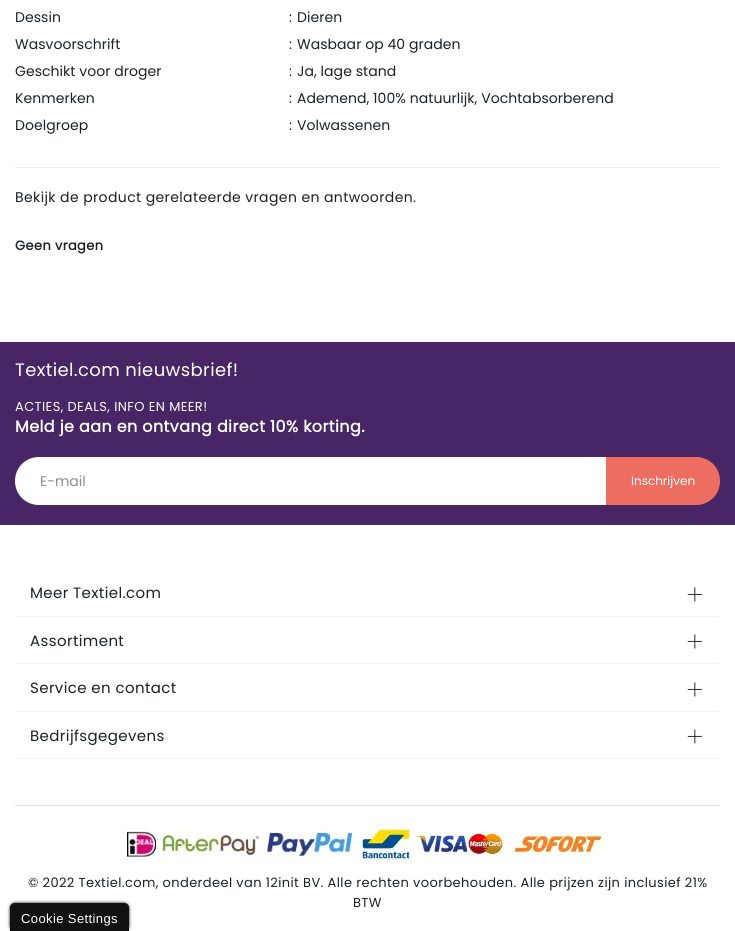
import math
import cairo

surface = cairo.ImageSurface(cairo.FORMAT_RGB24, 735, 931)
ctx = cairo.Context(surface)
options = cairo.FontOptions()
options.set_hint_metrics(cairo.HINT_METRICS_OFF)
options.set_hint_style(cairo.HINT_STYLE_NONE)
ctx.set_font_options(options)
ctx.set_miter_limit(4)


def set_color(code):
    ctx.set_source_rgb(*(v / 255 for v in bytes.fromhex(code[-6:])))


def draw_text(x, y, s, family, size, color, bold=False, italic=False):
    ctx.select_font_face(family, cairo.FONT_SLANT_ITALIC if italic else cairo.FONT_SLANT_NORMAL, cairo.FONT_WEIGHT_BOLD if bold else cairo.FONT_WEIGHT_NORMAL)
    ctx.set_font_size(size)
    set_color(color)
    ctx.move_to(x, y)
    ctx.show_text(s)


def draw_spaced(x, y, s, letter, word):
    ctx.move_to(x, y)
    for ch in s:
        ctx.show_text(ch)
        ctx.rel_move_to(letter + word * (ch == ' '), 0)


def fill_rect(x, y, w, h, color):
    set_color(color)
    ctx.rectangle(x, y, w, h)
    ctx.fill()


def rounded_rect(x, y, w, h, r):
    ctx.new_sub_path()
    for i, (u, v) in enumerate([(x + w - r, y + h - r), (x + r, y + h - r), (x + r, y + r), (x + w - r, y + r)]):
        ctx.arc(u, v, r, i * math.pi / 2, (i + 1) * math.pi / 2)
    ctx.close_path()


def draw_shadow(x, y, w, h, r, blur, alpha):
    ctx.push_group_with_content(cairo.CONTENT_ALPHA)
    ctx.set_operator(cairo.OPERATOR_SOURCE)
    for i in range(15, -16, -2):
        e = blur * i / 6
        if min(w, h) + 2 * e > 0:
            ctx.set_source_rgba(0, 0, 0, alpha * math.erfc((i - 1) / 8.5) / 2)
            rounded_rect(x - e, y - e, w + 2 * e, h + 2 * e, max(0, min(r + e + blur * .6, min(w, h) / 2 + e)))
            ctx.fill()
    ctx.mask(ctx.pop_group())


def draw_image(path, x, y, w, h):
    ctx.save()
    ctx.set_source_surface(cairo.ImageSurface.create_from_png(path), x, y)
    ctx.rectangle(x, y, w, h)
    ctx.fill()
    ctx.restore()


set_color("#ffffff")
ctx.paint()
fill_rect(15, 167, 705, 1, "#eeeeee")
ctx.select_font_face("Poppins")
ctx.set_font_size(14)
set_color("#1c2125")
draw_spaced(15, 22, "Dessin", 0.05, 0)
draw_spaced(289, 22, ":", 0.05, 0)
draw_spaced(297, 22, "Dieren", 0.05, 0)
draw_spaced(15, 49, "Wasvoorschrift", 0.05, 0)
draw_spaced(289, 49, ":", 0.05, 0)
draw_spaced(297, 49, "Wasbaar op 40 graden", 0.05, 0)
draw_spaced(15, 76, "Geschikt voor droger", 0.05, 0)
draw_spaced(289, 76, ":", 0.05, 0)
draw_spaced(297, 76, "Ja, lage stand", 0.05, 0)
draw_spaced(15, 103, "Kenmerken", 0.05, 0)
draw_spaced(289, 103, ":", 0.05, 0)
draw_spaced(297, 103, "Ademend, 100% natuurlijk, Vochtabsorberend", 0.05, 0)
draw_spaced(15, 130, "Doelgroep", 0.05, 0)
draw_spaced(289, 130, ":", 0.05, 0)
draw_spaced(297, 130, "Volwassenen", 0.05, 0)
draw_spaced(15, 202, "Bekijk de product gerelateerde vragen en antwoorden.", 0.39, 0)
ctx.select_font_face("Poppins", cairo.FONT_SLANT_NORMAL, cairo.FONT_WEIGHT_BOLD)
ctx.set_font_size(13)
draw_spaced(15, 250, "Geen vragen", 0.39, 0)
fill_rect(0, 342, 735, 183, "#482565")
ctx.select_font_face("Poppins")
ctx.set_font_size(18)
set_color("#ffffff")
draw_spaced(15, 376, "Textiel.com nieuwsbrief!", 0.39, 0)
ctx.set_font_size(13)
draw_spaced(15, 411, "ACTIES, DEALS, INFO EN MEER!", 0.39, 0)
ctx.select_font_face("Poppins", cairo.FONT_SLANT_NORMAL, cairo.FONT_WEIGHT_BOLD)
ctx.set_font_size(16)
draw_spaced(15, 432, "Meld je aan en ontvang direct 10% korting.", 0.39, 0)
ctx.new_path()
ctx.move_to(39, 457)
ctx.line_to(607, 457)
ctx.line_to(607, 505)
ctx.line_to(39, 505)
ctx.curve_to(25.5, 505, 15, 494.5, 15, 481)
ctx.curve_to(15, 467.5, 25.5, 457, 39, 457)
ctx.close_path()
ctx.fill()
draw_text(40, 486, "E-mail", "Poppins", 14, "#8d8d8d")
set_color("#ed6d61")
ctx.new_path()
ctx.move_to(606, 457)
ctx.line_to(696, 457)
ctx.curve_to(709.5, 457, 720, 467.5, 720, 481)
ctx.curve_to(720, 494.5, 709.5, 505, 696, 505)
ctx.line_to(606, 505)
ctx.close_path()
ctx.fill()
draw_text(631, 485, "Inschrijven", "Poppins", 12, "#ffffff")
fill_rect(16, 616, 703, 1, "#f2f2f2")
ctx.set_font_size(15)
set_color("#1c2125")
draw_spaced(30, 598, "Meer Textiel.com", 0.39, 0)
draw_image("assets/img1.png", 687, 587, 15, 15)
fill_rect(16, 663, 703, 1, "#f2f2f2")
set_color("#1c2125")
draw_spaced(30, 646, "Assortiment", 0.39, 0)
draw_image("assets/img1.png", 687, 634, 15, 15)
fill_rect(16, 711, 703, 1, "#f2f2f2")
set_color("#1c2125")
draw_spaced(30, 693, "Service en contact", 0.39, 0)
draw_image("assets/img1.png", 687, 682, 15, 15)
fill_rect(16, 758, 703, 1, "#f2f2f2")
set_color("#1c2125")
draw_spaced(30, 741, "Bedrijfsgegevens", 0.39, 0)
draw_image("assets/img1.png", 687, 729, 15, 15)
fill_rect(15, 805, 705, 1, "#e1e1e1")
draw_image("assets/img2.png", 125, 824, 480, 40)
ctx.set_font_size(13)
set_color("#1c2125")
draw_spaced(28, 887, "© 2022 Textiel.com, onderdeel van 12init BV. Alle rechten voorbehouden. Alle prijzen zijn inclusief 21%", 0.39, 0)
draw_spaced(353, 907, "BTW", 0.39, 0)
set_color("#000000")
draw_shadow(10, 903, 119, 28, 5, 1.5, 1)
set_color("#111111")
ctx.new_path()
ctx.move_to(15, 903)
ctx.line_to(124, 903)
ctx.curve_to(127, 903, 129, 905, 129, 908)
ctx.line_to(129, 931)
ctx.line_to(10, 931)
ctx.line_to(10, 908)
ctx.curve_to(10, 905, 12, 903, 15, 903)
ctx.close_path()
ctx.fill()
ctx.select_font_face("Liberation Sans")
set_color("#ffffff")
draw_spaced(21, 923, "Cookie Settings", 0.39, 0)
surface.write_to_png("output.png")
